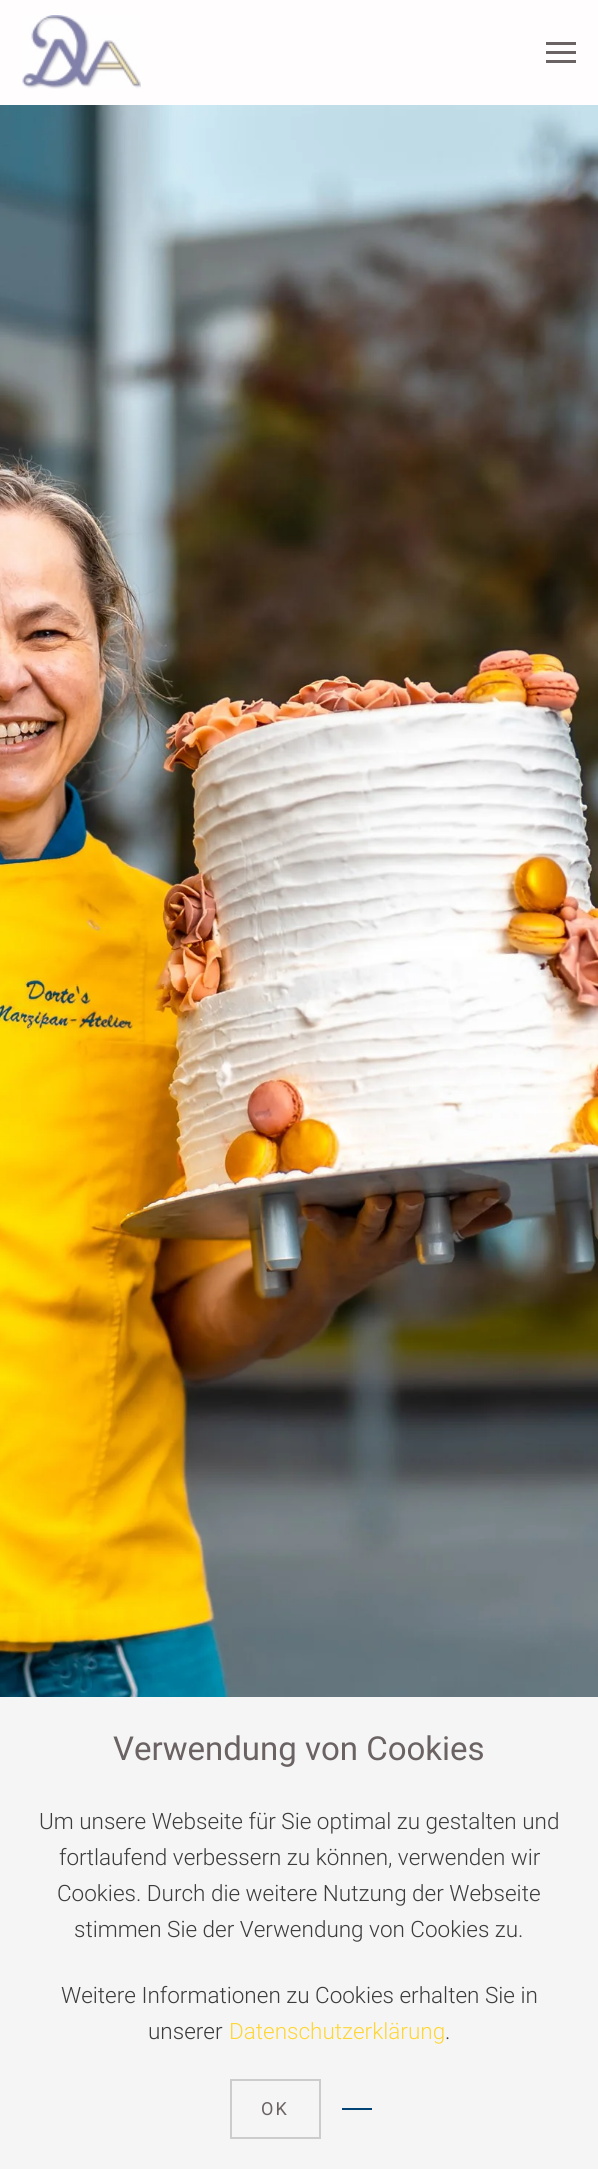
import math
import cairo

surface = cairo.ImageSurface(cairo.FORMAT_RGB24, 598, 2169)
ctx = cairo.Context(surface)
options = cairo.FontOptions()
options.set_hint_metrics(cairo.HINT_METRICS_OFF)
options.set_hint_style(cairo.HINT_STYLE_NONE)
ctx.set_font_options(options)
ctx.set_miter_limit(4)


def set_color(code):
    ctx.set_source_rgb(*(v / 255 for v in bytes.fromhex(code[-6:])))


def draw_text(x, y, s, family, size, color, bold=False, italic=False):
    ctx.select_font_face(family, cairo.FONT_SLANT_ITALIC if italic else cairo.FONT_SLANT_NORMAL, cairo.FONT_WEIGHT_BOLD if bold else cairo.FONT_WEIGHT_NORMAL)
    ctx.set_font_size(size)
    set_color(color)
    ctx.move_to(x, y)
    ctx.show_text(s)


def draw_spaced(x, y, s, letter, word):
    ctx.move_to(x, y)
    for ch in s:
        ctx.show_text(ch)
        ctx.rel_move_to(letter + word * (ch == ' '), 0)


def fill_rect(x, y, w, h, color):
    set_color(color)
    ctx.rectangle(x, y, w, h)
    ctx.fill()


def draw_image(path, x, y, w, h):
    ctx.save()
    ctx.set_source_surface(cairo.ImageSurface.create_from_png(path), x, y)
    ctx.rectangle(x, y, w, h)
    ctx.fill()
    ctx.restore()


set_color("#fffdfd")
ctx.paint()
draw_image("assets/img1.png", 22, 15, 119, 74)
fill_rect(546, 42, 30, 3, "#6b6363")
fill_rect(546, 51, 30, 3, "#6b6363")
fill_rect(546, 60, 30, 3, "#6b6363")
draw_image("assets/img2.png", 0, 105, 598, 1592)
fill_rect(0, 1697, 598, 472, "#f5f5f5")
draw_text(113, 1760, "Verwendung von Cookies", "Roboto", 33, "#6b6363")
draw_text(39, 1829, "Um unsere Webseite für Sie optimal zu gestalten und", "Roboto Light", 22.5, "#3c3c3c")
draw_text(59, 1865, "fortlaufend verbessern zu können, verwenden wir", "Roboto Light", 22.5, "#3c3c3c")
draw_text(57, 1901, "Cookies. Durch die weitere Nutzung der Webseite", "Roboto Light", 22.5, "#3c3c3c")
draw_text(74, 1937, "stimmen Sie der Verwendung von Cookies zu.", "Roboto Light", 22.5, "#3c3c3c")
draw_text(61, 2003, "Weitere Informationen zu Cookies erhalten Sie in", "Roboto Light", 22.5, "#3c3c3c")
draw_text(148, 2039, "unserer", "Roboto Light", 22.5, "#3c3c3c")
draw_text(229, 2039, "Datenschutzerklärung", "Roboto Light", 22.5, "#fed636")
draw_text(445, 2039, ".", "Roboto Light", 22.5, "#3c3c3c")
ctx.rectangle(231, 2080, 89, 58)
set_color("#cccccc")
ctx.stroke()
ctx.select_font_face("Roboto")
ctx.set_font_size(18)
set_color("#6b6363")
draw_spaced(261, 2115, "OK", 2, 0)
fill_rect(342, 2108, 30, 2, "#024375")
surface.write_to_png("output.png")
